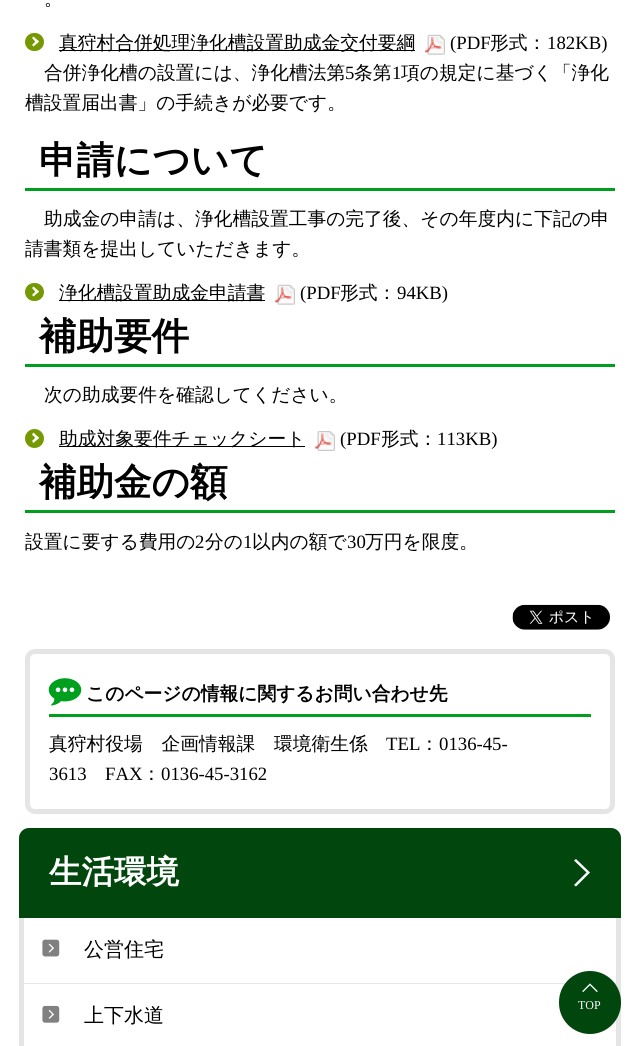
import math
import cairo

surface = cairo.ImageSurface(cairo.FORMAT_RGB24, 640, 1046)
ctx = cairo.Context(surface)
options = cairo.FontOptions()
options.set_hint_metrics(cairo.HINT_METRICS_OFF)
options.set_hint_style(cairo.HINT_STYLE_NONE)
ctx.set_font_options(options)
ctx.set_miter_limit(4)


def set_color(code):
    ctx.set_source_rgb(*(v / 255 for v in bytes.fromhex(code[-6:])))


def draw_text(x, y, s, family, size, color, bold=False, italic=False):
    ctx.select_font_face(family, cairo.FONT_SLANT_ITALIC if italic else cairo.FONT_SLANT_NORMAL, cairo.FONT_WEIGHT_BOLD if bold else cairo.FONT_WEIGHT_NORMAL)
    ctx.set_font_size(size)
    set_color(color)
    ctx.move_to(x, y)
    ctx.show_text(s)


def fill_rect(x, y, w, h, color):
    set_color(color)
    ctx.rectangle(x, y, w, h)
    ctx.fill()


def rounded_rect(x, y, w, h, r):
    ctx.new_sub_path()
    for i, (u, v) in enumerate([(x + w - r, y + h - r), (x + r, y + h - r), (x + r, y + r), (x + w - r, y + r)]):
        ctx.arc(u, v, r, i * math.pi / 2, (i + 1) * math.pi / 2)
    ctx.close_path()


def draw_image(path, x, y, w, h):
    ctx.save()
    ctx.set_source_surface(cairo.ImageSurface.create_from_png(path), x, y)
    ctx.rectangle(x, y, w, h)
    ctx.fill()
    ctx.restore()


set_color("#ffffff")
ctx.paint()
draw_text(44, 5, "。", "WenQuanYi Zen Hei Medium", 18.75, "#000000")
set_color("#759903")
rounded_rect(25, 33, 19, 18, 9)
ctx.fill()
fill_rect(59, 50, 356, 1, "#000000")
draw_text(59, 49, "真狩村合併処理浄化槽設置助成金交付要綱", "WenQuanYi Zen Hei Medium", 18.75, "#000000")
set_color("#ffffff")
ctx.new_path()
ctx.move_to(33.5, 36.5)
ctx.line_to(39, 41.5)
ctx.line_to(37, 43.5)
ctx.line_to(32, 38)
ctx.close_path()
ctx.fill()
ctx.new_path()
ctx.move_to(37, 40)
ctx.line_to(39, 41.5)
ctx.line_to(33.5, 46.5)
ctx.line_to(32, 45)
ctx.close_path()
ctx.fill()
draw_image("assets/img1.png", 425, 34, 20, 21)
draw_text(450, 49, "(PDF", "Liberation Serif", 18.75, "#000000")
draw_text(490, 49, "形式：", "WenQuanYi Zen Hei Medium", 18.75, "#000000")
draw_text(547, 49, "182KB)", "Liberation Serif", 18.75, "#000000")
draw_text(44, 79, "合併浄化槽の設置には、浄化槽法第", "WenQuanYi Zen Hei Medium", 18.75, "#000000")
draw_text(345, 79, "5", "Liberation Serif", 18.75, "#000000")
draw_text(354, 79, "条第", "WenQuanYi Zen Hei Medium", 18.75, "#000000")
draw_text(392, 79, "1", "Liberation Serif", 18.75, "#000000")
draw_text(401, 79, "項の規定に基づく「浄化", "WenQuanYi Zen Hei Medium", 18.75, "#000000")
draw_text(25, 109, "槽設置届出書」の手続きが必要です。", "WenQuanYi Zen Hei Medium", 18.75, "#000000")
fill_rect(25, 188, 590, 3, "#009f1e")
draw_text(39, 173, "申請について", "WenQuanYi Zen Hei", 37.5, "#000000", bold=True)
draw_text(44, 225, "助成金の申請は、浄化槽設置工事の完了後、その年度内に下記の申", "WenQuanYi Zen Hei Medium", 18.75, "#000000")
draw_text(25, 255, "請書類を提出していただきます。", "WenQuanYi Zen Hei Medium", 18.75, "#000000")
set_color("#759903")
rounded_rect(25, 283, 19, 18, 9)
ctx.fill()
fill_rect(59, 300, 206, 1, "#000000")
draw_text(59, 299, "浄化槽設置助成金申請書", "WenQuanYi Zen Hei Medium", 18.75, "#000000")
set_color("#ffffff")
ctx.new_path()
ctx.move_to(33.5, 286.5)
ctx.line_to(39, 291.5)
ctx.line_to(37, 293.5)
ctx.line_to(32, 288)
ctx.close_path()
ctx.fill()
ctx.new_path()
ctx.move_to(37, 290)
ctx.line_to(39, 291.5)
ctx.line_to(33.5, 296.5)
ctx.line_to(32, 295)
ctx.close_path()
ctx.fill()
draw_image("assets/img1.png", 275, 284, 20, 21)
draw_text(300, 299, "(PDF", "Liberation Serif", 18.75, "#000000")
draw_text(340, 299, "形式：", "WenQuanYi Zen Hei Medium", 18.75, "#000000")
draw_text(397, 299, "94KB)", "Liberation Serif", 18.75, "#000000")
fill_rect(25, 364, 590, 3, "#009f1e")
draw_text(39, 349, "補助要件", "WenQuanYi Zen Hei", 37.5, "#000000", bold=True)
draw_text(44, 401, "次の助成要件を確認してください。", "WenQuanYi Zen Hei Medium", 18.75, "#000000")
set_color("#759903")
ctx.new_path()
ctx.arc(34.5, 438.5, 9.5, 0, 2 * math.pi)
ctx.fill()
fill_rect(59, 446, 246, 1, "#000000")
draw_text(59, 445, "助成対象要件チェックシート", "WenQuanYi Zen Hei Medium", 18.75, "#000000")
set_color("#ffffff")
ctx.new_path()
ctx.move_to(33.5, 432.5)
ctx.line_to(39, 438)
ctx.line_to(37, 439.5)
ctx.line_to(32, 434.5)
ctx.close_path()
ctx.fill()
ctx.new_path()
ctx.move_to(37, 436)
ctx.line_to(39, 438)
ctx.line_to(33.5, 443)
ctx.line_to(32, 441)
ctx.close_path()
ctx.fill()
draw_image("assets/img2.png", 315, 431, 20, 20)
draw_text(340, 445, "(PDF", "Liberation Serif", 18.75, "#000000")
draw_text(381, 445, "形式：", "WenQuanYi Zen Hei Medium", 18.75, "#000000")
draw_text(437, 445, "113KB)", "Liberation Serif", 18.75, "#000000")
fill_rect(25, 510, 590, 3, "#009f1e")
draw_text(39, 495, "補助金の額", "WenQuanYi Zen Hei", 37.5, "#000000", bold=True)
draw_text(25, 548, "設置に要する費用の", "WenQuanYi Zen Hei Medium", 18.75, "#000000")
draw_text(195, 548, "2", "Liberation Serif", 18.75, "#000000")
draw_text(205, 548, "分の", "WenQuanYi Zen Hei Medium", 18.75, "#000000")
draw_text(243, 548, "1", "Liberation Serif", 18.75, "#000000")
draw_text(252, 548, "以内の額で", "WenQuanYi Zen Hei Medium", 18.75, "#000000")
draw_text(347, 548, "30", "Liberation Serif", 18.75, "#000000")
draw_text(365, 548, "万円を限度。", "WenQuanYi Zen Hei Medium", 18.75, "#000000")
draw_image("assets/img3.png", 512, 604, 98, 26)
rounded_rect(27.5, 651.5, 585, 160, 7.5)
set_color("#e5e5e5")
ctx.set_line_width(5)
ctx.stroke()
fill_rect(49, 714, 542, 3, "#009f1e")
draw_image("assets/img4.png", 48, 678, 34, 28)
draw_text(86, 700, "このページの情報に関するお問い合わせ先", "WenQuanYi Zen Hei", 18.75, "#000000", bold=True)
draw_text(49, 750, "真狩村役場　企画情報課　環境衛生係", "WenQuanYi Zen Hei Medium", 18.75, "#000000")
draw_text(386, 750, "TEL", "Liberation Serif", 18.75, "#000000")
draw_text(420, 750, "：", "WenQuanYi Zen Hei Medium", 18.75, "#000000")
draw_text(439, 750, "0136-45-", "Liberation Serif", 18.75, "#000000")
draw_text(49, 780, "3613", "Liberation Serif", 18.75, "#000000")
draw_text(105, 780, "FAX", "Liberation Serif", 18.75, "#000000")
draw_text(142, 780, "：", "WenQuanYi Zen Hei Medium", 18.75, "#000000")
draw_text(161, 780, "0136-45-3162", "Liberation Serif", 18.75, "#000000")
set_color("#00460d")
ctx.new_path()
ctx.move_to(29, 828)
ctx.line_to(611, 828)
ctx.curve_to(616.5, 828, 621, 832.5, 621, 838)
ctx.line_to(621, 918)
ctx.line_to(19, 918)
ctx.line_to(19, 838)
ctx.curve_to(19, 832.5, 23.5, 828, 29, 828)
ctx.close_path()
ctx.fill()
draw_text(49, 883, "生活環境", "WenQuanYi Zen Hei", 32.5, "#ffffff", bold=True)
ctx.new_path()
ctx.move_to(574, 860.5)
ctx.line_to(586.5, 872.5)
ctx.line_to(574, 885)
ctx.line_to(576, 886.5)
ctx.line_to(590, 872.5)
ctx.line_to(576, 859)
ctx.close_path()
ctx.fill()
fill_rect(616, 918, 5, 128, "#e5e5e5")
fill_rect(19, 983, 602, 1, "#e5e5e5")
fill_rect(19, 918, 5, 128, "#e5e5e5")
draw_image("assets/img5.png", 42, 939, 18, 18)
draw_text(84, 956, "公営住宅", "WenQuanYi Zen Hei Medium", 20, "#000000")
draw_image("assets/img6.png", 42, 1005, 18, 18)
draw_text(84, 1022, "上下水道", "WenQuanYi Zen Hei Medium", 20, "#000000")
set_color("#00460d")
rounded_rect(559, 971, 62, 63, 31)
ctx.fill()
draw_image("assets/img7.png", 582, 983, 16, 9)
draw_text(578, 1009, "TOP", "Liberation Serif", 12, "#ffffff")
surface.write_to_png("output.png")
